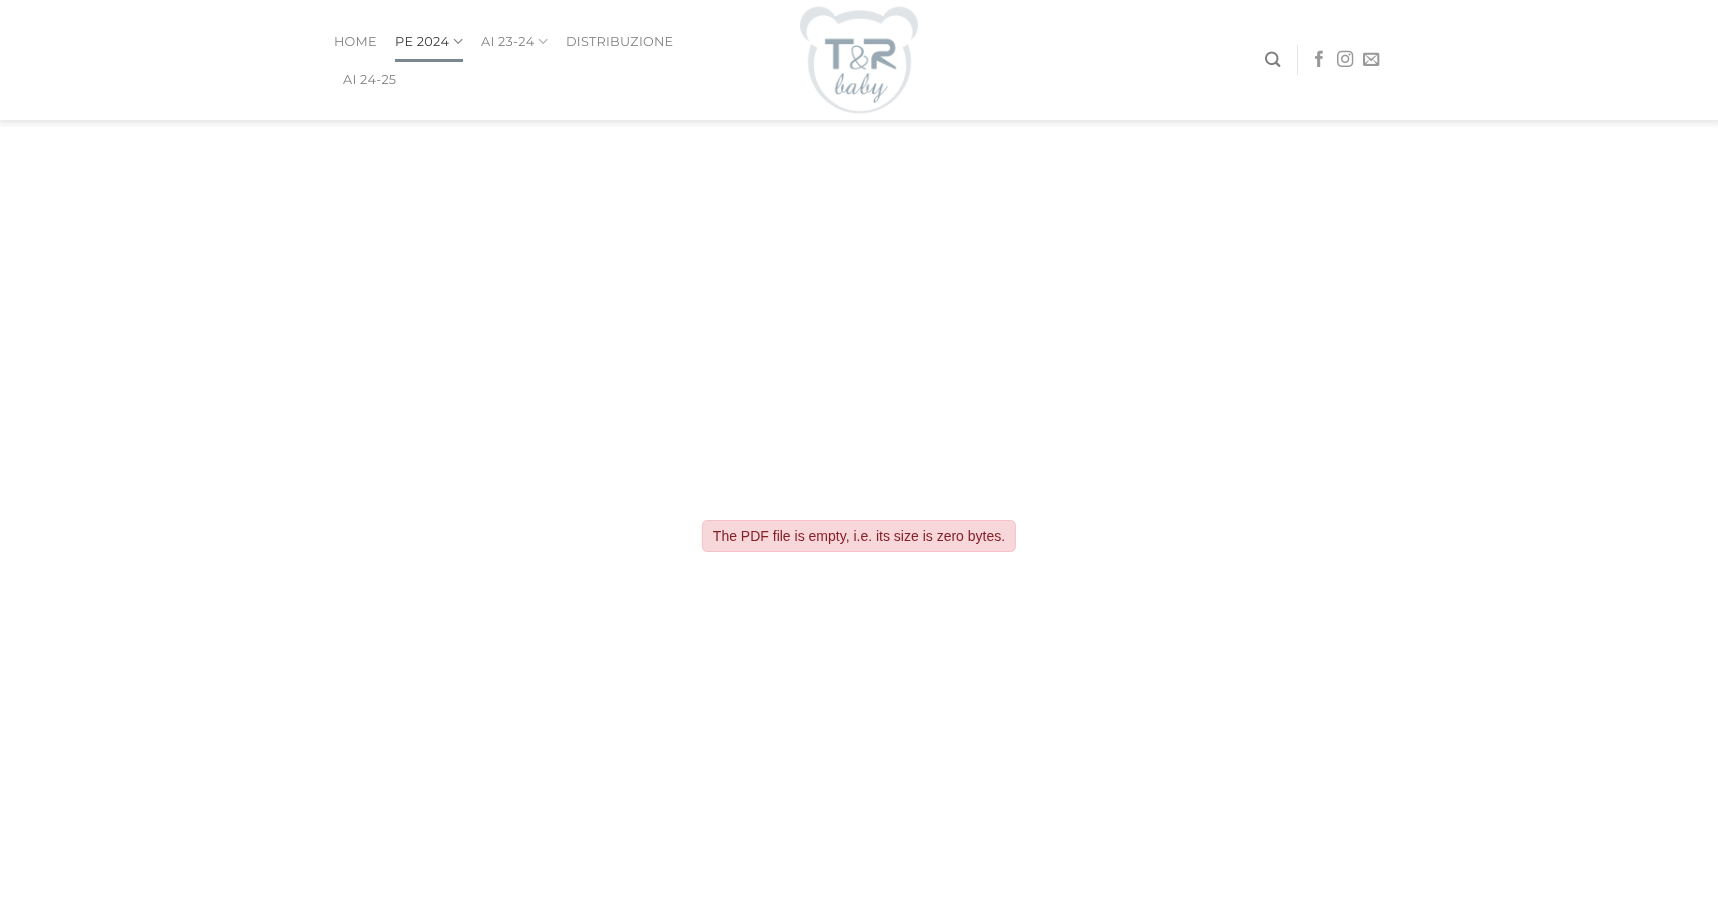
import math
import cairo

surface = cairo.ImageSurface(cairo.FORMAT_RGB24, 1718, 924)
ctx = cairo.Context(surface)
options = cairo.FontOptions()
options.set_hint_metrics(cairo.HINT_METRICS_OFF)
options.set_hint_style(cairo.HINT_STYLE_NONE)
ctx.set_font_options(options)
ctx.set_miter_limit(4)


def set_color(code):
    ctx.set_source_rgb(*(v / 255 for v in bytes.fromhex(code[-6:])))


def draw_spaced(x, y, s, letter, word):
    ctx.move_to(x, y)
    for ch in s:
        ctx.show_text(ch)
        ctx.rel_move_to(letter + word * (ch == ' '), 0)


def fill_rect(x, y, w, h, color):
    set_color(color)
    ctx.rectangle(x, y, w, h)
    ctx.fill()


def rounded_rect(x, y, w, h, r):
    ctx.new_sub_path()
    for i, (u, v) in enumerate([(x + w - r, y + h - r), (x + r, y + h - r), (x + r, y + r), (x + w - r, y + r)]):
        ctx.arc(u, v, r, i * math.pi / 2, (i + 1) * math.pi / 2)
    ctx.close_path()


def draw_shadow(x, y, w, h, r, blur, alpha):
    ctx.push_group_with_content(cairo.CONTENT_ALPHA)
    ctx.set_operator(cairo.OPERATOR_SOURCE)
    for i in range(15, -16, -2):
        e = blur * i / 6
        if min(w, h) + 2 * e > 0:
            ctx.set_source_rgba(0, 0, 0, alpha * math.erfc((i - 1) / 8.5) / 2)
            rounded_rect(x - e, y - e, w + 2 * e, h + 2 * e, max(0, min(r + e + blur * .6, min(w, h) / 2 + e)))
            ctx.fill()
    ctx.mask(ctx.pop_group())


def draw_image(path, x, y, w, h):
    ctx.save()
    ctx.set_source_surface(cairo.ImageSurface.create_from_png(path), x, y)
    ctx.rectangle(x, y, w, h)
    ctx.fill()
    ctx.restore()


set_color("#ffffff")
ctx.paint()
ctx.save()
ctx.rectangle(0, 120, 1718, 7)
ctx.clip()
set_color("#000000")
draw_shadow(1, 1, 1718, 120, 0, 5, 0.15)
ctx.restore()
ctx.select_font_face("Montserrat")
ctx.set_font_size(12.75)
set_color("#7d7d7d")
draw_spaced(334, 46, "HOME", 0.25, 0)
set_color("#363636")
draw_spaced(395, 46, "PE 2024", 0.25, 0)
draw_image("assets/img1.png", 453, 38, 10, 6)
fill_rect(395, 59, 68, 3, "#7a8790")
set_color("#7d7d7d")
draw_spaced(481, 46, "AI 23-24", 0.25, 0)
draw_image("assets/img2.png", 538, 38, 10, 6)
draw_spaced(566, 46, "DISTRIBUZIONE", 0.25, 0)
draw_spaced(343, 84, "AI 24-25", 0.25, 0)
draw_image("assets/img3.png", 800, 6, 118, 108)
draw_image("assets/img4.png", 1265, 51, 16, 16)
fill_rect(1297, 45, 1, 30, "#e6e6e6")
draw_image("assets/img5.png", 1315, 50, 8, 17)
draw_image("assets/img6.png", 1337, 50, 17, 17)
draw_image("assets/img7.png", 1363, 52, 17, 14)
draw_image("assets/img8.png", 701, 520, 315, 32)
surface.write_to_png("output.png")
